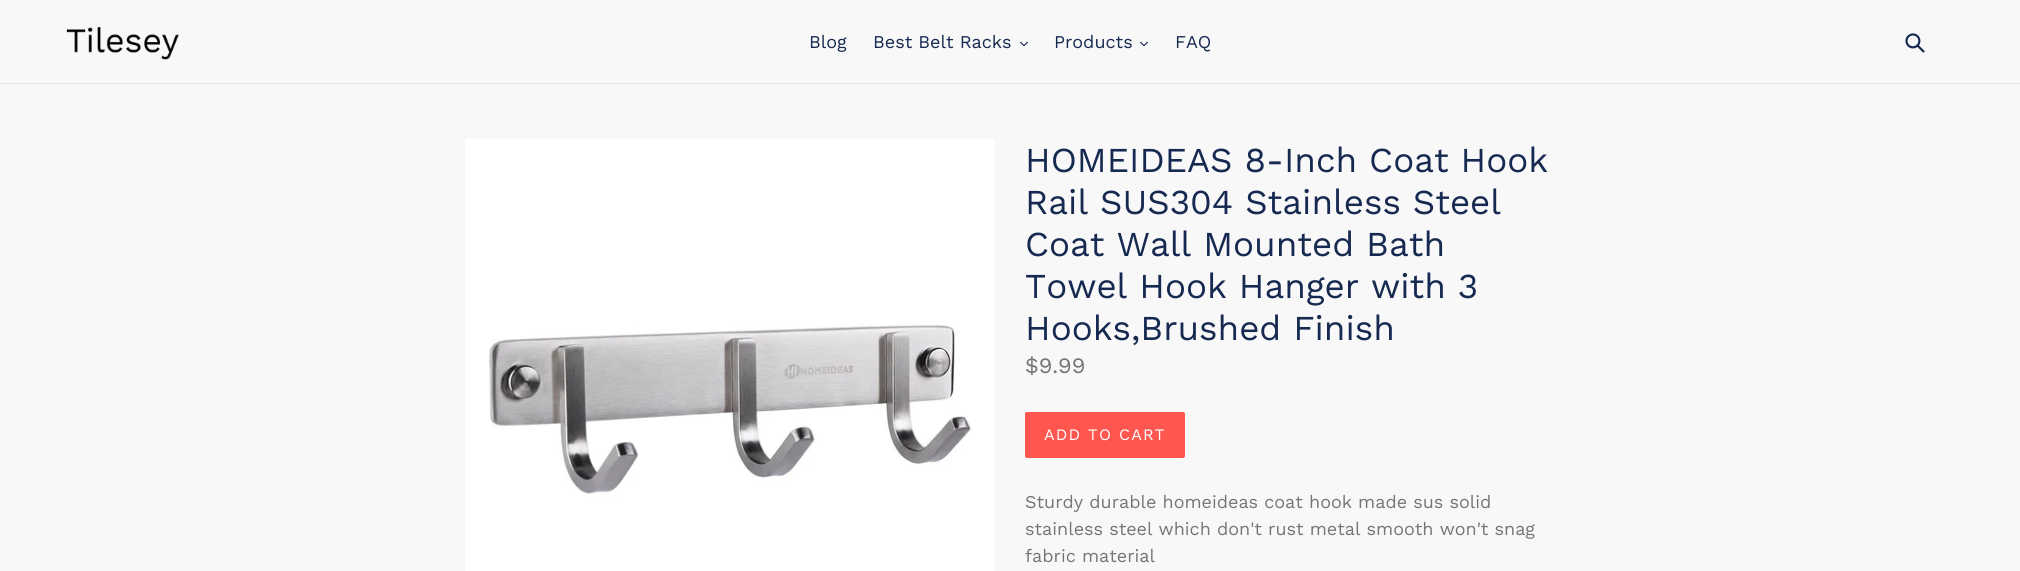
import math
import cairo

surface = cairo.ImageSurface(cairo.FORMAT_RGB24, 2020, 571)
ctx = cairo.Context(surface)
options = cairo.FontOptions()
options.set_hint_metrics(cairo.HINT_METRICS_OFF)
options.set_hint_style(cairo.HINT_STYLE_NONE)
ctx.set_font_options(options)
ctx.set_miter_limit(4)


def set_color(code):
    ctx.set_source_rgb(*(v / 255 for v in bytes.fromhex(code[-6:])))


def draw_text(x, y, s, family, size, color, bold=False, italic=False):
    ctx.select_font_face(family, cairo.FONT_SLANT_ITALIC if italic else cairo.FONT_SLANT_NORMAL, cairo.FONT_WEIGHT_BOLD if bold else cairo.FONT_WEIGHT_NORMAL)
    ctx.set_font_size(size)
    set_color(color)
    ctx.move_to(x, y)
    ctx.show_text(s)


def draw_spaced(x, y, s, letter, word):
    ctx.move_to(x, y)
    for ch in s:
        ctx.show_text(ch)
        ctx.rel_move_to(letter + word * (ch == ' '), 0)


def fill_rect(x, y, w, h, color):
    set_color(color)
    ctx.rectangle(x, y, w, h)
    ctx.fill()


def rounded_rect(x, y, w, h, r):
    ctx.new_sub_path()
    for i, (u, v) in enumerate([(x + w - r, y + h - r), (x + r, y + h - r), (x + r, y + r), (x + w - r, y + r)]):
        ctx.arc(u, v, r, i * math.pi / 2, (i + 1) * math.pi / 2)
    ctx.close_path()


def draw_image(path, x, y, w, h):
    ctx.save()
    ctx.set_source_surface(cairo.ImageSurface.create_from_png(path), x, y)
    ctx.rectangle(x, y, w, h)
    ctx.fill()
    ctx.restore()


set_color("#f8f8f8")
ctx.paint()
fill_rect(0, 83, 2020, 1, "#e4e4e4")
draw_image("assets/img1.png", 66, 27, 113, 33)
draw_text(809, 48, "Blog", "Work Sans", 18, "#162950")
draw_text(873, 48, "Best Belt Racks", "Work Sans", 18, "#162950")
draw_image("assets/img2.png", 1020, 41, 8, 6)
draw_text(1054, 48, "Products", "Work Sans", 18, "#162950")
draw_image("assets/img2.png", 1140, 41, 8, 6)
draw_text(1175, 48, "FAQ", "Work Sans", 18, "#162950")
draw_image("assets/img3.png", 1905, 33, 20, 20)
draw_image("assets/img4.png", 465, 139, 530, 432)
draw_text(1025, 172, "HOMEIDEAS 8-Inch Coat Hook", "Work Sans", 35, "#162950")
draw_text(1025, 214, "Rail SUS304 Stainless Steel", "Work Sans", 35, "#162950")
draw_text(1025, 256, "Coat Wall Mounted Bath", "Work Sans", 35, "#162950")
draw_text(1025, 298, "Towel Hook Hanger with 3", "Work Sans", 35, "#162950")
draw_text(1025, 340, "Hooks,Brushed Finish", "Work Sans", 35, "#162950")
draw_text(1025, 373, "$9.99", "Work Sans", 22, "#757575")
set_color("#ff574f")
rounded_rect(1025, 412, 160, 46, 2)
ctx.fill()
ctx.set_font_size(16)
set_color("#ffffff")
draw_spaced(1044, 440, "ADD TO CART", 1.25, 0)
draw_text(1025, 508, "Sturdy durable homeideas coat hook made sus solid", "Work Sans", 18, "#757575")
draw_text(1025, 535, "stainless steel which don't rust metal smooth won't snag", "Work Sans", 18, "#757575")
draw_text(1025, 562, "fabric material", "Work Sans", 18, "#757575")
surface.write_to_png("output.png")
